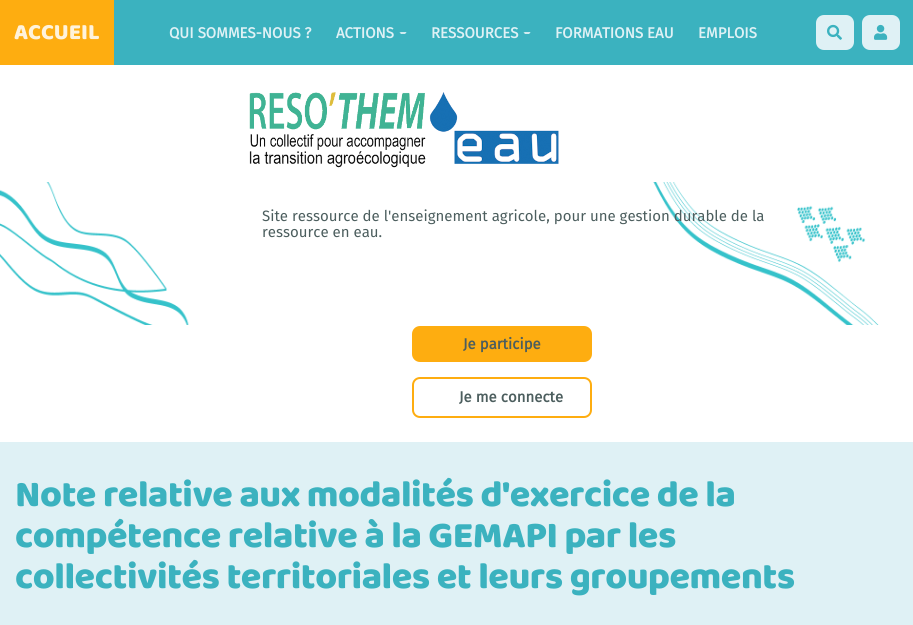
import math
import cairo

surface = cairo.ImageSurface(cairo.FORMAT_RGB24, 913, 625)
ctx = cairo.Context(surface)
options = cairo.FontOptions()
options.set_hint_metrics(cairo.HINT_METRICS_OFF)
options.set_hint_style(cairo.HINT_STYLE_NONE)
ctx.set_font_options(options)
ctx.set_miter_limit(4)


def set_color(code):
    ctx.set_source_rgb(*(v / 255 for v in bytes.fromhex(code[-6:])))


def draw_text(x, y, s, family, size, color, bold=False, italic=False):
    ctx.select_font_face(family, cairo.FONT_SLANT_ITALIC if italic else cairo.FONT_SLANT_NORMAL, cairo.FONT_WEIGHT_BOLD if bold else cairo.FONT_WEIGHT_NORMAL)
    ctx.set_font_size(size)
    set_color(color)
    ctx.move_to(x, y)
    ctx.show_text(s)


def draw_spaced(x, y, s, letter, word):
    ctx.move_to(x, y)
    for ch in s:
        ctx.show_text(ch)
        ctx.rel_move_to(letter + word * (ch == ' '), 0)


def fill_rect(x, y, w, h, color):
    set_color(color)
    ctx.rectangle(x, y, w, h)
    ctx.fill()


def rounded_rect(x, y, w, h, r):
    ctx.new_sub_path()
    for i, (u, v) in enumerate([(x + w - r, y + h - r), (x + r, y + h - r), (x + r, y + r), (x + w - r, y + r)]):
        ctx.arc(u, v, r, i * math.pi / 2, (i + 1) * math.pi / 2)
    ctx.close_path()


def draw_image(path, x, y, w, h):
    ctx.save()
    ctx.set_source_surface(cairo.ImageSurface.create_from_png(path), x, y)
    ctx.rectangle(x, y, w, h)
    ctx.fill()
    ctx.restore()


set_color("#dff1f5")
ctx.paint()
fill_rect(114, 0, 799, 65, "#3bb2bf")
fill_rect(0, 0, 114, 65, "#fead10")
draw_text(14, 39, "ACCUEIL", "Baloo 2 ExtraBold", 22.5, "#fff3db")
draw_text(169, 38, "QUI SOMMES-NOUS ?", "Fira Sans", 15, "#dff1f5", bold=True)
draw_text(336, 38, "ACTIONS", "Fira Sans", 15, "#dff1f5", bold=True)
set_color("#cfebf0")
ctx.new_path()
ctx.move_to(401, 32)
ctx.line_to(399.5, 32.5)
ctx.line_to(401, 34)
ctx.line_to(405, 34)
ctx.line_to(406.5, 32.5)
ctx.line_to(406, 32)
ctx.close_path()
ctx.fill()
draw_text(431, 38, "RESSOURCES", "Fira Sans", 15, "#dff1f5", bold=True)
set_color("#cfebf0")
ctx.new_path()
ctx.move_to(525, 32)
ctx.line_to(523.5, 32.5)
ctx.line_to(525, 34)
ctx.line_to(529, 34)
ctx.line_to(530.5, 32.5)
ctx.line_to(530, 32)
ctx.close_path()
ctx.fill()
draw_text(555, 38, "FORMATIONS EAU", "Fira Sans", 15, "#dff1f5", bold=True)
draw_text(698, 38, "EMPLOIS", "Fira Sans", 15, "#dff1f5", bold=True)
rounded_rect(816, 15, 38, 35, 8)
ctx.fill()
draw_image("assets/img1.png", 827, 24, 15, 16)
rounded_rect(862, 15, 38, 35, 8)
ctx.fill()
draw_image("assets/img2.png", 874, 24, 14, 16)
fill_rect(0, 65, 913, 377, "#ffffff")
draw_image("assets/img3.png", 0, 182, 879, 143)
draw_image("assets/img4.png", 249, 92, 310, 76)
draw_text(262, 221, "Site ressource de l'enseignement agricole, pour une gestion durable de la", "Fira Sans", 15, "#4c5e5e")
draw_text(262, 237, "ressource en eau.", "Fira Sans", 15, "#4c5e5e")
set_color("#fead10")
rounded_rect(412, 326, 180, 36, 8)
ctx.fill()
draw_text(463, 349, "Je participe", "Fira Sans", 15, "#4c5e5e", bold=True)
rounded_rect(413, 378, 178, 39, 7)
set_color("#fead10")
ctx.stroke()
draw_text(459, 402, "Je me connecte", "Fira Sans", 15, "#4c5e5e", bold=True)
ctx.select_font_face("Baloo 2 ExtraBold")
ctx.set_font_size(37.5)
set_color("#3bb2bf")
draw_spaced(15, 506, "Note relative aux modalités d'exercice de la", -0.5, 0)
draw_spaced(15, 547, "compétence relative à la GEMAPI par les", -0.5, 0)
draw_spaced(15, 588, "collectivités territoriales et leurs groupements", -0.5, 0)
surface.write_to_png("output.png")
